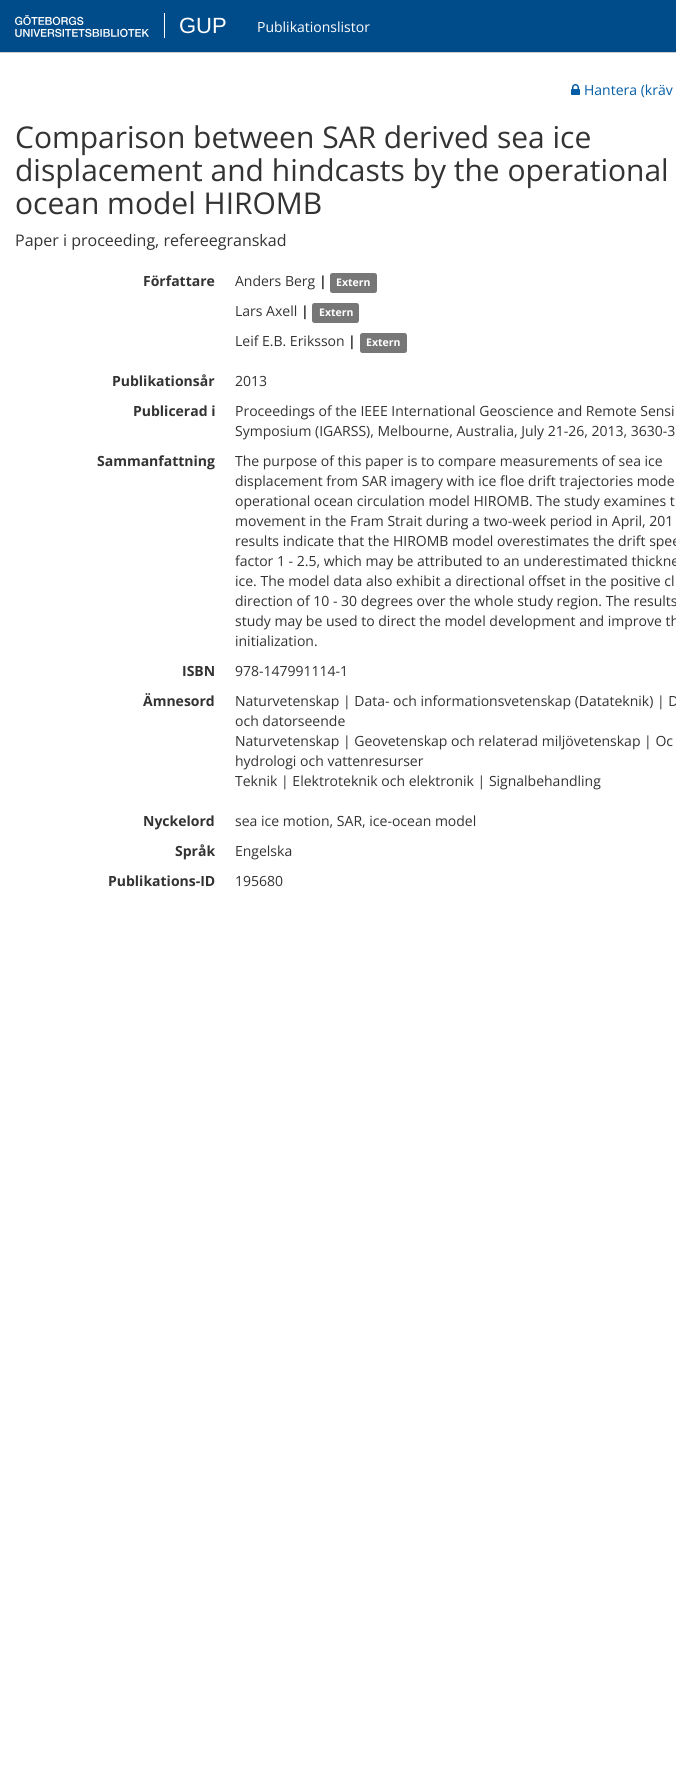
import math
import cairo

surface = cairo.ImageSurface(cairo.FORMAT_RGB24, 676, 1776)
ctx = cairo.Context(surface)
options = cairo.FontOptions()
options.set_hint_metrics(cairo.HINT_METRICS_OFF)
options.set_hint_style(cairo.HINT_STYLE_NONE)
ctx.set_font_options(options)
ctx.set_miter_limit(4)


def set_color(code):
    ctx.set_source_rgb(*(v / 255 for v in bytes.fromhex(code[-6:])))


def draw_text(x, y, s, family, size, color, bold=False, italic=False):
    ctx.select_font_face(family, cairo.FONT_SLANT_ITALIC if italic else cairo.FONT_SLANT_NORMAL, cairo.FONT_WEIGHT_BOLD if bold else cairo.FONT_WEIGHT_NORMAL)
    ctx.set_font_size(size)
    set_color(color)
    ctx.move_to(x, y)
    ctx.show_text(s)


def fill_rect(x, y, w, h, color):
    set_color(color)
    ctx.rectangle(x, y, w, h)
    ctx.fill()


def rounded_rect(x, y, w, h, r):
    ctx.new_sub_path()
    for i, (u, v) in enumerate([(x + w - r, y + h - r), (x + r, y + h - r), (x + r, y + r), (x + w - r, y + r)]):
        ctx.arc(u, v, r, i * math.pi / 2, (i + 1) * math.pi / 2)
    ctx.close_path()


def draw_image(path, x, y, w, h):
    ctx.save()
    ctx.set_source_surface(cairo.ImageSurface.create_from_png(path), x, y)
    ctx.rectangle(x, y, w, h)
    ctx.fill()
    ctx.restore()


set_color("#ffffff")
ctx.paint()
fill_rect(0, 0, 676, 52, "#004b89")
fill_rect(0, 52, 676, 1, "#cccccc")
draw_image("assets/img1.png", 15, 15, 134, 22)
fill_rect(164, 13, 1, 25, "#ffffff")
draw_text(179, 33, "GUP", "Liberation Sans", 22, "#ffffff")
draw_text(257, 32, "Publikationslistor", "Open Sans", 14, "#ffffff")
draw_image("assets/img2.png", 571, 84, 9, 11)
draw_text(584, 95, "Hantera (kräv", "Open Sans", 14, "#025da6")
draw_text(15, 148, "Comparison between SAR derived sea ice", "Open Sans", 30, "#333333")
draw_text(15, 181, "displacement and hindcasts by the operational", "Open Sans", 30, "#333333")
draw_text(15, 214, "ocean model HIROMB", "Open Sans", 30, "#333333")
draw_text(15, 246, "Paper i proceeding, refereegranskad", "Open Sans", 16, "#333333")
draw_text(143, 286, "Författare", "Open Sans", 14, "#333333", bold=True)
draw_text(235, 286, "Anders Berg", "Open Sans", 14, "#333333")
draw_text(319, 286, "|", "Open Sans", 14, "#333333", bold=True)
set_color("#777777")
rounded_rect(330, 273, 47, 20, 2.5)
ctx.fill()
draw_text(336, 286, "Extern", "Open Sans", 10.5, "#ffffff", bold=True)
draw_text(235, 316, "Lars Axell", "Open Sans", 14, "#333333")
draw_text(301, 316, "|", "Open Sans", 14, "#333333", bold=True)
set_color("#777777")
rounded_rect(312, 303, 47, 20, 2.5)
ctx.fill()
draw_text(319, 316, "Extern", "Open Sans", 10.5, "#ffffff", bold=True)
draw_text(235, 346, "Leif E.B. Eriksson", "Open Sans", 14, "#333333")
draw_text(348, 346, "|", "Open Sans", 14, "#333333", bold=True)
set_color("#777777")
rounded_rect(360, 333, 47, 20, 2.5)
ctx.fill()
draw_text(366, 346, "Extern", "Open Sans", 10.5, "#ffffff", bold=True)
draw_text(112, 386, "Publikationsår", "Open Sans", 14, "#333333", bold=True)
draw_text(235, 386, "2013", "Open Sans", 14, "#333333")
draw_text(133, 416, "Publicerad i", "Open Sans", 14, "#333333", bold=True)
draw_text(235, 416, "Proceedings of the IEEE International Geoscience and Remote Sensi", "Open Sans", 14, "#333333")
draw_text(235, 436, "Symposium (IGARSS), Melbourne, Australia, July 21-26, 2013, 3630-3", "Open Sans", 14, "#333333")
draw_text(97, 466, "Sammanfattning", "Open Sans", 14, "#333333", bold=True)
draw_text(235, 466, "The purpose of this paper is to compare measurements of sea ice", "Open Sans", 14, "#333333")
draw_text(235, 486, "displacement from SAR imagery with ice floe drift trajectories mode", "Open Sans", 14, "#333333")
draw_text(235, 506, "operational ocean circulation model HIROMB. The study examines t", "Open Sans", 14, "#333333")
draw_text(235, 526, "movement in the Fram Strait during a two-week period in April, 201", "Open Sans", 14, "#333333")
draw_text(235, 546, "results indicate that the HIROMB model overestimates the drift spee", "Open Sans", 14, "#333333")
draw_text(235, 566, "factor 1 - 2.5, which may be attributed to an underestimated thickne", "Open Sans", 14, "#333333")
draw_text(235, 586, "ice. The model data also exhibit a directional offset in the positive cl", "Open Sans", 14, "#333333")
draw_text(235, 606, "direction of 10 - 30 degrees over the whole study region. The results", "Open Sans", 14, "#333333")
draw_text(235, 626, "study may be used to direct the model development and improve th", "Open Sans", 14, "#333333")
draw_text(235, 646, "initialization.", "Open Sans", 14, "#333333")
draw_text(182, 676, "ISBN", "Open Sans", 14, "#333333", bold=True)
draw_text(235, 676, "978-147991114-1", "Open Sans", 14, "#333333")
draw_text(143, 706, "Ämnesord", "Open Sans", 14, "#333333", bold=True)
draw_text(235, 706, "Naturvetenskap | Data- och informationsvetenskap (Datateknik) | D", "Open Sans", 14, "#333333")
draw_text(235, 726, "och datorseende", "Open Sans", 14, "#333333")
draw_text(235, 746, "Naturvetenskap | Geovetenskap och relaterad miljövetenskap | Oc", "Open Sans", 14, "#333333")
draw_text(235, 766, "hydrologi och vattenresurser", "Open Sans", 14, "#333333")
draw_text(235, 786, "Teknik | Elektroteknik och elektronik | Signalbehandling", "Open Sans", 14, "#333333")
draw_text(143, 826, "Nyckelord", "Open Sans", 14, "#333333", bold=True)
draw_text(235, 826, "sea ice motion, SAR, ice-ocean model", "Open Sans", 14, "#333333")
draw_text(175, 856, "Språk", "Open Sans", 14, "#333333", bold=True)
draw_text(235, 856, "Engelska", "Open Sans", 14, "#333333")
draw_text(108, 886, "Publikations-ID", "Open Sans", 14, "#333333", bold=True)
draw_text(235, 886, "195680", "Open Sans", 14, "#333333")
surface.write_to_png("output.png")
